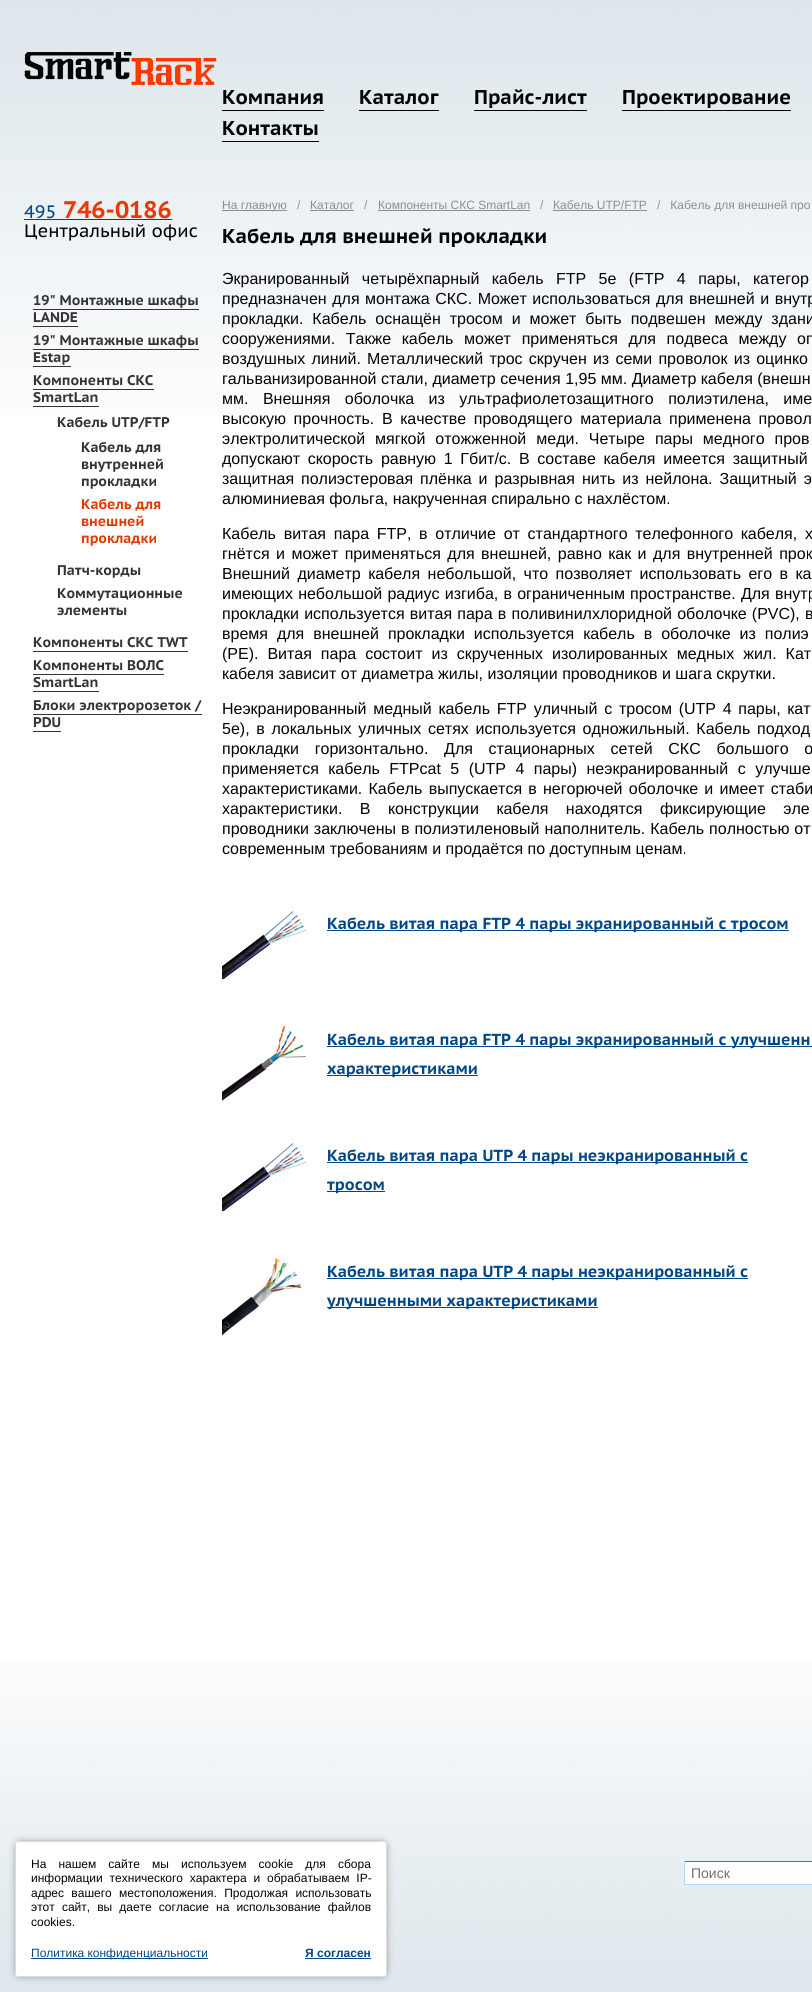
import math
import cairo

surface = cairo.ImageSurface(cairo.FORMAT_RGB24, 812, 1992)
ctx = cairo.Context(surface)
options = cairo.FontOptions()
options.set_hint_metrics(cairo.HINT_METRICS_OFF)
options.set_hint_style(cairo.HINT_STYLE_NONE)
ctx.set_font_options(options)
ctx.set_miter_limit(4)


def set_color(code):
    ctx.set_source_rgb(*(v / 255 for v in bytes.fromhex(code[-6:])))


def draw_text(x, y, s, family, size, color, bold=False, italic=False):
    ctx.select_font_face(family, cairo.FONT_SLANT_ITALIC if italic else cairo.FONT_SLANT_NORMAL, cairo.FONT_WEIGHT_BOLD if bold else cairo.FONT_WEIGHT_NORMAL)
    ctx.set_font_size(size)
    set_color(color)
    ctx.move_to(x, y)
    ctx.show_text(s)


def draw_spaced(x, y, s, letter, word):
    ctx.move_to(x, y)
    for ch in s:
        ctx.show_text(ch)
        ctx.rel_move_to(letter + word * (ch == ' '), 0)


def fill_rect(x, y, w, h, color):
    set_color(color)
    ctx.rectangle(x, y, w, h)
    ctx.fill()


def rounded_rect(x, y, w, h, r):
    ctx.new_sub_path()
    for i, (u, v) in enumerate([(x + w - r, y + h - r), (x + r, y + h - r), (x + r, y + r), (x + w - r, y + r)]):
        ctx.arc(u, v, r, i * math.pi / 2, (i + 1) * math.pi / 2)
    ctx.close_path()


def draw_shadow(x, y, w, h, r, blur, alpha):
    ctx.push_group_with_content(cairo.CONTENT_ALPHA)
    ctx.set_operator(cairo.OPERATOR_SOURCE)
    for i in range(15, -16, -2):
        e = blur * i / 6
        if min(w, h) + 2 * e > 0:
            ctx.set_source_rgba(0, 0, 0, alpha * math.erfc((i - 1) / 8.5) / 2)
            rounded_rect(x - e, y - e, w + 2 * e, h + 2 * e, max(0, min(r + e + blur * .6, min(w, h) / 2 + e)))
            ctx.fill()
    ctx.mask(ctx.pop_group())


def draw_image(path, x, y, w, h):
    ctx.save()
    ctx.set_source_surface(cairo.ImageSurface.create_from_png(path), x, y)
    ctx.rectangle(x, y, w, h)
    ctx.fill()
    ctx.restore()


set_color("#ffffff")
ctx.paint()
draw_image("assets/img1.png", 0, 0, 812, 415)
draw_image("assets/img2.png", 24, 52, 193, 33)
draw_text(222, 104, "Компания", "PT Sans Caption", 20, "#030303", bold=True)
fill_rect(222, 110, 102, 1, "#030303")
draw_text(359, 104, "Каталог", "PT Sans Caption", 20, "#030303", bold=True)
fill_rect(359, 110, 80, 1, "#030303")
draw_text(474, 104, "Прайс-лист", "PT Sans Caption", 20, "#030303", bold=True)
fill_rect(474, 110, 113, 1, "#030303")
draw_text(622, 104, "Проектирование", "PT Sans Caption", 20, "#030303", bold=True)
fill_rect(622, 110, 169, 1, "#030303")
draw_text(222, 135, "Контакты", "PT Sans Caption", 20, "#030303", bold=True)
fill_rect(222, 141, 97, 1, "#030303")
draw_text(24, 218, "495", "PT Sans Caption", 18, "#004788")
fill_rect(24, 219, 148, 1, "#004788")
draw_text(63, 218, "746-0186", "PT Sans Caption", 24, "#e93802", bold=True)
draw_text(24, 237, "Центральный офис", "PT Sans Caption", 18, "#030303")
draw_text(33, 305, "19\" Монтажные шкафы", "PT Sans Caption", 14, "#333333", bold=True)
fill_rect(33, 309, 166, 1, "#333333")
draw_text(33, 322, "LANDE", "PT Sans Caption", 14, "#333333", bold=True)
fill_rect(33, 326, 45, 1, "#333333")
draw_text(33, 345, "19\" Монтажные шкафы", "PT Sans Caption", 14, "#333333", bold=True)
fill_rect(33, 349, 166, 1, "#333333")
draw_text(33, 362, "Estap", "PT Sans Caption", 14, "#333333", bold=True)
fill_rect(33, 366, 38, 1, "#333333")
draw_text(33, 385, "Компоненты СКС", "PT Sans Caption", 14, "#333333", bold=True)
draw_text(33, 402, "SmartLan", "PT Sans Caption", 14, "#333333", bold=True)
fill_rect(33, 389, 121, 1, "#333333")
fill_rect(33, 406, 66, 1, "#333333")
draw_text(57, 427, "Кабель UTP/FTP", "PT Sans Caption", 14, "#333333", bold=True)
draw_text(81, 452, "Кабель для", "PT Sans Caption", 14, "#333333", bold=True)
draw_text(81, 469, "внутренней", "PT Sans Caption", 14, "#333333", bold=True)
draw_text(81, 486, "прокладки", "PT Sans Caption", 14, "#333333", bold=True)
draw_text(81, 509, "Кабель для", "PT Sans Caption", 14, "#e13800", bold=True)
draw_text(81, 526, "внешней", "PT Sans Caption", 14, "#e13800", bold=True)
draw_text(81, 543, "прокладки", "PT Sans Caption", 14, "#e13800", bold=True)
draw_text(57, 575, "Патч-корды", "PT Sans Caption", 14, "#333333", bold=True)
draw_text(57, 598, "Коммутационные", "PT Sans Caption", 14, "#333333", bold=True)
draw_text(57, 615, "элементы", "PT Sans Caption", 14, "#333333", bold=True)
draw_text(33, 647, "Компоненты СКС TWT", "PT Sans Caption", 14, "#333333", bold=True)
fill_rect(33, 651, 155, 1, "#333333")
draw_text(33, 670, "Компоненты ВОЛС", "PT Sans Caption", 14, "#333333", bold=True)
draw_text(33, 687, "SmartLan", "PT Sans Caption", 14, "#333333", bold=True)
fill_rect(33, 674, 131, 1, "#333333")
fill_rect(33, 691, 66, 1, "#333333")
draw_text(33, 710, "Блоки электророзеток /", "PT Sans Caption", 14, "#333333", bold=True)
fill_rect(33, 714, 169, 1, "#333333")
draw_text(33, 727, "PDU", "PT Sans Caption", 14, "#333333", bold=True)
fill_rect(33, 731, 28, 1, "#333333")
fill_rect(222, 210, 65, 1, "#888f93")
draw_text(222, 209, "На главную", "Liberation Sans", 12, "#888f93")
draw_text(297, 209, "/", "Liberation Sans", 12, "#888f93")
draw_text(310, 209, "Каталог", "Liberation Sans", 12, "#888f93")
fill_rect(310, 210, 44, 1, "#888f93")
draw_text(364, 209, "/", "Liberation Sans", 12, "#888f93")
draw_text(378, 209, "Компоненты СКС SmartLan", "Liberation Sans", 12, "#888f93")
fill_rect(378, 210, 152, 1, "#888f93")
draw_text(540, 209, "/", "Liberation Sans", 12, "#888f93")
draw_text(553, 209, "Кабель UTP/FTP", "Liberation Sans", 12, "#888f93")
fill_rect(553, 210, 94, 1, "#888f93")
draw_text(657, 209, "/   Кабель для внешней про", "Liberation Sans", 12, "#888f93")
draw_text(222, 243, "Кабель для внешней прокладки", "PT Sans Caption", 20, "#030303", bold=True)
ctx.select_font_face("Liberation Sans")
ctx.set_font_size(16)
draw_spaced(222, 284, "Экранированный четырёхпарный кабель FTP 5e (FTP 4 пары, категор", 0, 8)
draw_spaced(222, 304, "предназначен для монтажа СКС. Может использоваться для внешней и внутр", 0, 1.1)
draw_spaced(222, 324, "прокладки. Кабель оснащён тросом и может быть подвешен между здани", 0, 4.5)
draw_spaced(222, 344, "сооружениями. Также кабель может применяться для подвеса между оп", 0, 6.25)
draw_spaced(222, 364, "воздушных линий. Металлический трос скручен из семи проволок из оцинко", 0, 1.75)
draw_text(222, 384, "гальванизированной стали, диаметр сечения 1,95 мм. Диаметр кабеля (внешн", "Liberation Sans", 16, "#030303")
draw_spaced(222, 404, "мм. Внешняя оболочка из ультрафиолетозащитного полиэтилена, име", 0, 10)
draw_spaced(222, 424, "высокую прочность. В качестве проводящего материала применена провол", 0, 3.25)
draw_spaced(222, 444, "электролитической мягкой отожженной меди. Четыре пары медного пров", 0, 5.5)
draw_spaced(222, 464, "допускают скорость равную 1 Гбит/с. В составе кабеля имеется защитный", 0, 3.25)
draw_spaced(222, 484, "защитная полиэстеровая плёнка и разрывная нить из нейлона. Защитный э", 0, 2.5)
draw_text(222, 504, "алюминиевая фольга, накрученная спирально с нахлёстом.", "Liberation Sans", 16, "#030303")
draw_spaced(222, 539, "Кабель витая пара FTP, в отличие от стандартного телефонного кабеля, х", 0, 3.25)
draw_spaced(222, 559, "гнётся и может применяться для внешней, равно как и для внутренней прок", 0, 2)
draw_spaced(222, 579, "Внешний диаметр кабеля небольшой, что позволяет использовать его в ка", 0, 3)
draw_spaced(222, 599, "имеющих небольшой радиус изгиба, в ограниченным пространстве. Для внутр", 0, 0.75)
draw_spaced(222, 619, "прокладки используется витая пара в поливинилхлоридной оболочке (PVC), в", 0, 0.75)
draw_spaced(222, 639, "время для внешней прокладки используется кабель в оболочке из полиэ", 0, 4.5)
draw_spaced(222, 659, "(PE). Витая пара состоит из скрученных изолированных медных жил. Кат", 0, 4.5)
draw_text(222, 679, "кабеля зависит от диаметра жилы, изоляции проводников и шага скрутки.", "Liberation Sans", 16, "#030303")
draw_spaced(222, 714, "Неэкранированный медный кабель FTP уличный с тросом (UTP 4 пары, кат", 0, 2.25)
draw_spaced(222, 734, "5е), в локальных уличных сетях используется одножильный. Кабель подход", 0, 2.25)
draw_spaced(222, 754, "прокладки горизонтально. Для стационарных сетей СКС большого о", 0, 11.25)
draw_spaced(222, 774, "применяется кабель FTPcat 5 (UTP 4 пары) неэкранированный с улучше", 0, 5)
draw_spaced(222, 794, "характеристиками. Кабель выпускается в негорючей оболочке и имеет стаби", 0, 1.75)
draw_spaced(222, 814, "характеристики. В конструкции кабеля находятся фиксирующие эле", 0, 13)
draw_spaced(222, 834, "проводники заключены в полиэтиленовый наполнитель. Кабель полностью от", 0, 0.5)
draw_text(222, 854, "современным требованиям и продаётся по доступным ценам.", "Liberation Sans", 16, "#030303")
draw_image("assets/img3.png", 222, 911, 85, 68)
fill_rect(327, 930, 462, 1, "#004788")
draw_text(327, 929, "Кабель витая пара FTP 4 пары экранированный с тросом", "PT Sans Caption", 16, "#004788", bold=True)
draw_image("assets/img4.png", 222, 1025, 84, 76)
fill_rect(327, 1046, 485, 1, "#004788")
draw_text(327, 1045, "Кабель витая пара FTP 4 пары экранированный с улучшенн", "PT Sans Caption", 16, "#004788", bold=True)
fill_rect(327, 1075, 151, 1, "#004788")
draw_text(327, 1074, "характеристиками", "PT Sans Caption", 16, "#004788", bold=True)
draw_image("assets/img3.png", 222, 1143, 85, 68)
fill_rect(327, 1162, 421, 1, "#004788")
draw_text(327, 1161, "Кабель витая пара UTP 4 пары неэкранированный с", "PT Sans Caption", 16, "#004788", bold=True)
fill_rect(327, 1191, 58, 1, "#004788")
draw_text(327, 1190, "тросом", "PT Sans Caption", 16, "#004788", bold=True)
draw_image("assets/img5.png", 222, 1258, 80, 78)
fill_rect(327, 1278, 421, 1, "#004788")
draw_text(327, 1277, "Кабель витая пара UTP 4 пары неэкранированный с", "PT Sans Caption", 16, "#004788", bold=True)
fill_rect(327, 1307, 271, 1, "#004788")
draw_text(327, 1306, "улучшенными характеристиками", "PT Sans Caption", 16, "#004788", bold=True)
draw_image("assets/img6.png", 0, 1662, 812, 330)
set_color("#000000")
draw_shadow(20, 1846, 362, 126, 0, 5, 1)
set_color("#ffffff")
rounded_rect(15.5, 1841.5, 371, 135, 2.5)
ctx.fill_preserve()
set_color("#dddddd")
ctx.set_line_width(1)
ctx.stroke()
ctx.select_font_face("Liberation Sans")
ctx.set_font_size(12)
set_color("#030303")
draw_spaced(31, 1868, "На нашем сайте мы используем cookie для сбора", 0, 8.75)
draw_spaced(31, 1882, "информации технического характера и обрабатываем IP-", 0, 3.5)
draw_spaced(31, 1897, "адрес вашего местоположения. Продолжая использовать", 0, 4)
draw_spaced(31, 1911, "этот сайт, вы даете согласие на использование файлов", 0, 3.75)
draw_text(31, 1926, "cookies.", "Liberation Sans", 12, "#030303")
fill_rect(31, 1958, 177, 1, "#004788")
draw_text(31, 1957, "Политика конфиденциальности", "Liberation Sans", 12, "#004788")
draw_text(305, 1957, "Я согласен", "Liberation Sans", 12, "#004788", bold=True)
fill_rect(305, 1958, 66, 1, "#004788")
fill_rect(685, 1862, 127, 22, "#ffffff")
fill_rect(684, 1861, 128, 1, "#3d7bad")
fill_rect(684, 1884, 128, 1, "#b7d9ed")
fill_rect(684, 1861, 1, 24, "#b7d9ed")
draw_text(691, 1878, "Поиск", "Liberation Sans", 14, "#6f7070")
surface.write_to_png("output.png")
